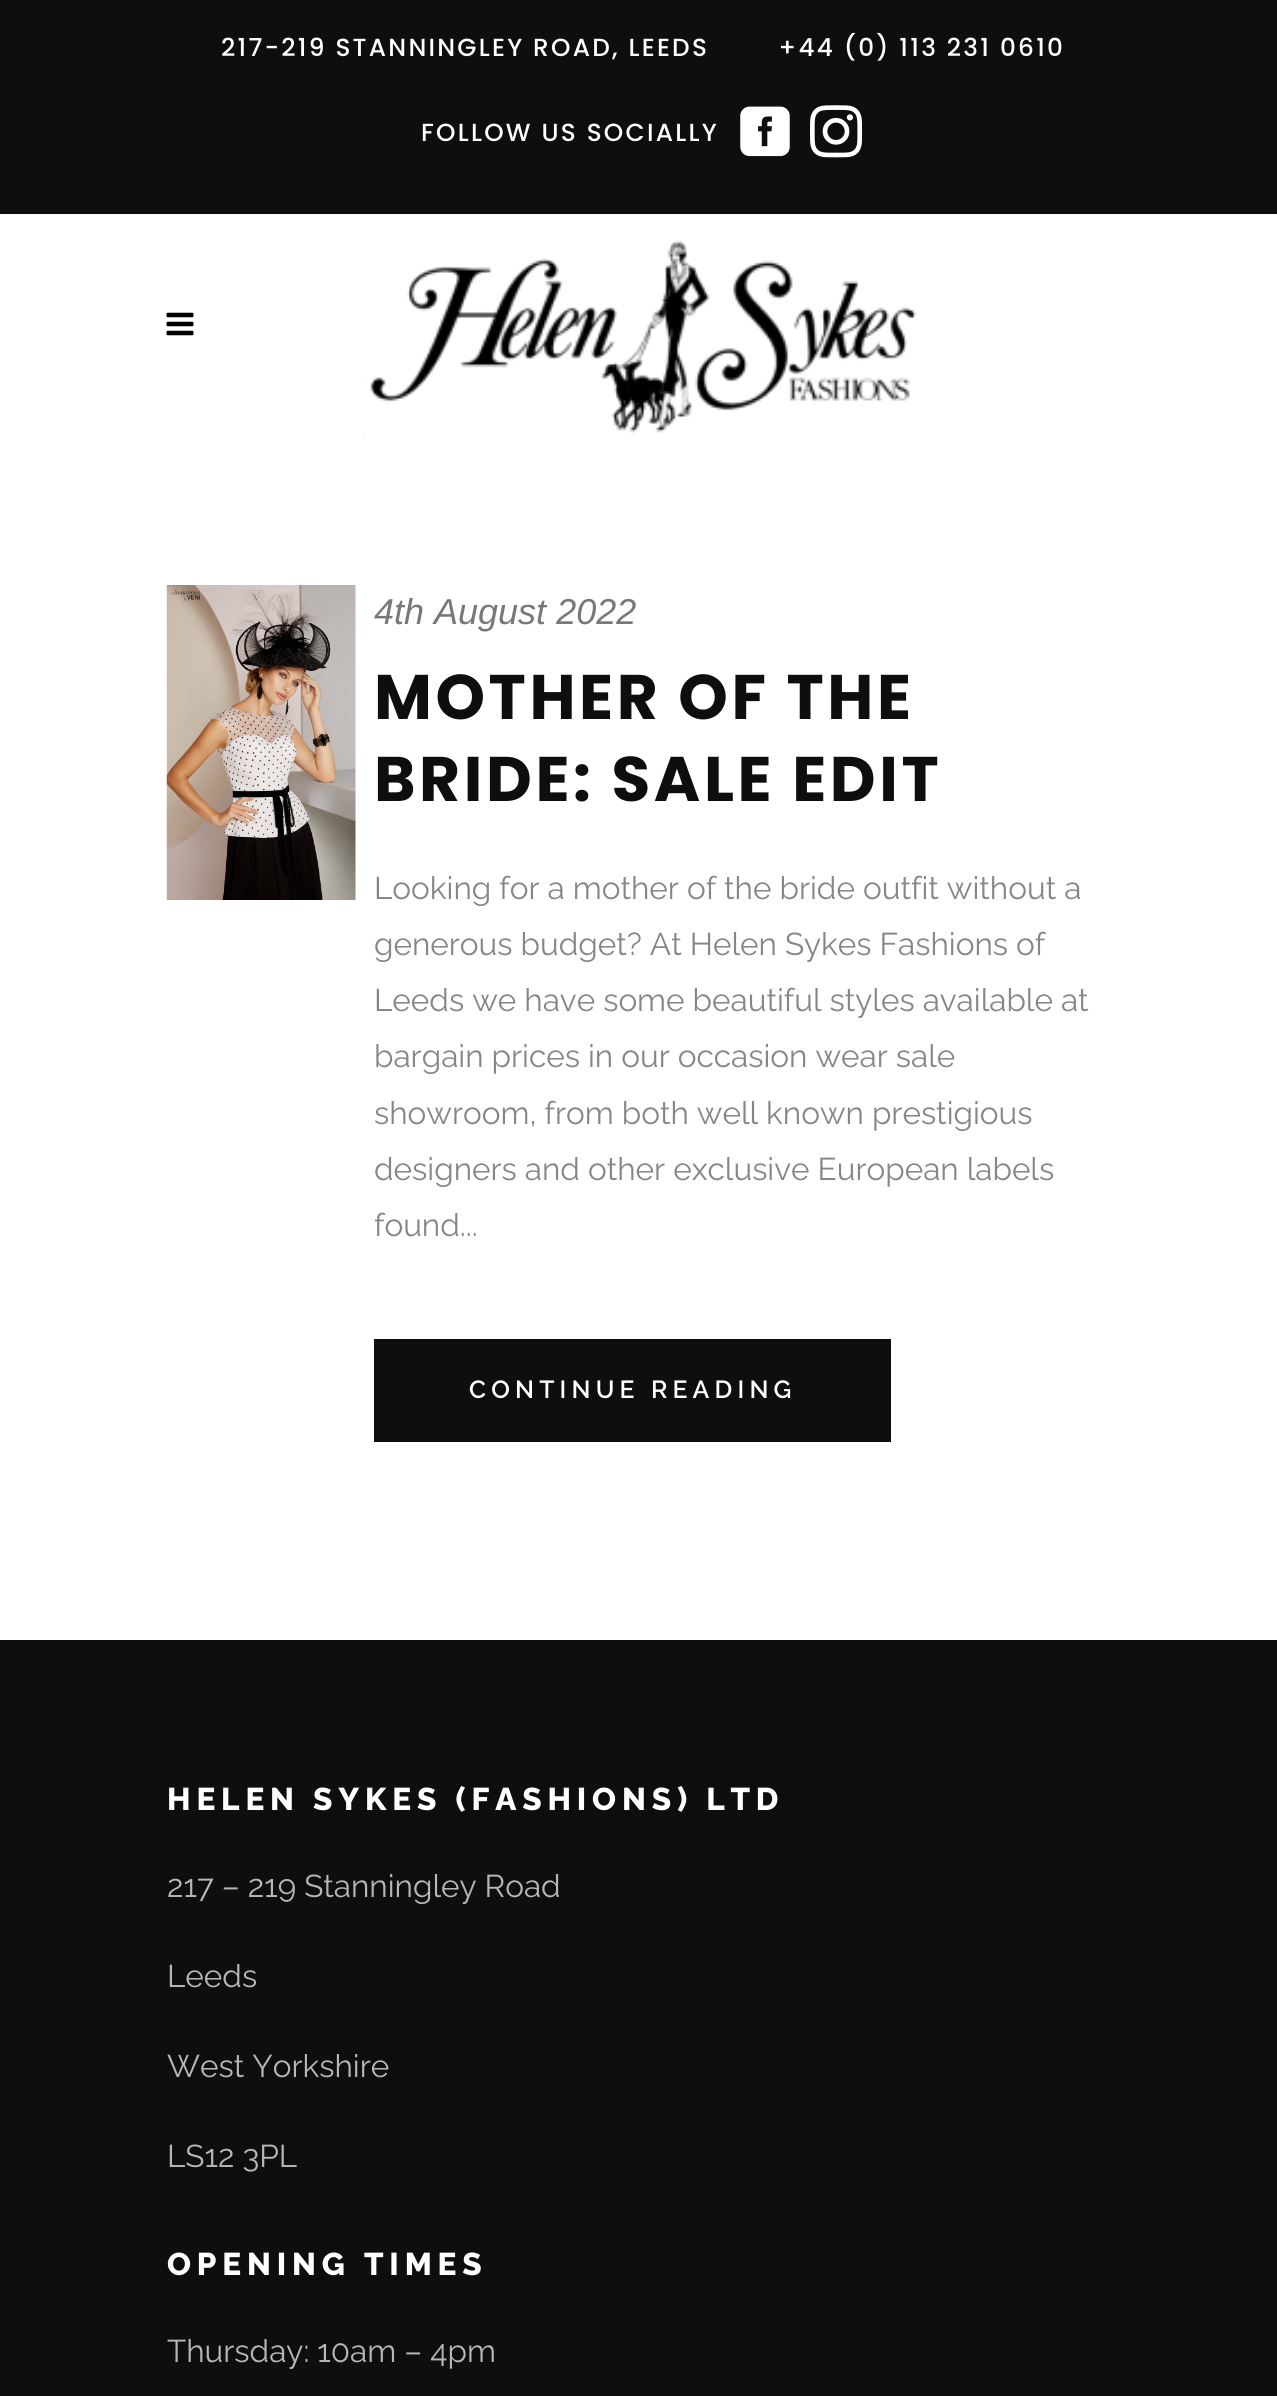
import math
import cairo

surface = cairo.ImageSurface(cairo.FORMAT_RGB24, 1277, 2396)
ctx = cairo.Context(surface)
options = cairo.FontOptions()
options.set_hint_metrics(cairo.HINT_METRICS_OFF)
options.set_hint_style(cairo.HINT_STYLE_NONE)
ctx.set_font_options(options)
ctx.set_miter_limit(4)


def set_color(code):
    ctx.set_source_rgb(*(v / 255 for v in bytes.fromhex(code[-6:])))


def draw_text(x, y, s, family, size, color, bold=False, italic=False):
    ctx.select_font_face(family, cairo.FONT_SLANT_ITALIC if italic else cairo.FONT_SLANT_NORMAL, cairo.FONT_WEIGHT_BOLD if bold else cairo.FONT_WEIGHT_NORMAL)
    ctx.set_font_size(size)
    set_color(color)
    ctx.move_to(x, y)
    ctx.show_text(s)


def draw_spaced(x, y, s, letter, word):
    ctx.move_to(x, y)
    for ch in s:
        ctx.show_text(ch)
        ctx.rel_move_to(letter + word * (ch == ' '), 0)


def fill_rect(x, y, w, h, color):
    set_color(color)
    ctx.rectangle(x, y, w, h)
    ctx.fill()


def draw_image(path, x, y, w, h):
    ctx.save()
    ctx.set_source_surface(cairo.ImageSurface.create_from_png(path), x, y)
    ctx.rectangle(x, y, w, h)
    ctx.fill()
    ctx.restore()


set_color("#ffffff")
ctx.paint()
fill_rect(0, 0, 1277, 214, "#0e0e0e")
ctx.select_font_face("Poppins Medium")
ctx.set_font_size(24.75)
set_color("#ffffff")
draw_spaced(221, 56, "217-219 STANNINGLEY ROAD, LEEDS        +44 (0) 113 231 0610", 2.25, 0)
draw_spaced(421, 141, "FOLLOW US SOCIALLY", 2.25, 0)
draw_image("assets/img1.png", 740, 106, 50, 51)
draw_image("assets/img2.png", 810, 105, 53, 53)
draw_image("assets/img3.png", 166, 312, 28, 24)
draw_image("assets/img4.png", 362, 240, 562, 199)
draw_image("assets/img5.png", 166, 585, 190, 315)
draw_text(374, 624, "4th August 2022", "Liberation Sans", 36, "#787878", italic=True)
ctx.select_font_face("Poppins", cairo.FONT_SLANT_NORMAL, cairo.FONT_WEIGHT_BOLD)
ctx.set_font_size(63)
set_color("#0e0e0e")
draw_spaced(374, 719, "MOTHER OF THE", 3.6, 0)
draw_spaced(374, 801, "BRIDE: SALE EDIT", 3.6, 0)
draw_text(374, 899, "Looking for a mother of the bride outfit without a", "Raleway", 31.5, "#868686")
draw_text(374, 955, "generous budget? At Helen Sykes Fashions of", "Raleway", 31.5, "#868686")
draw_text(374, 1011, "Leeds we have some beautiful styles available at", "Raleway", 31.5, "#868686")
draw_text(374, 1067, "bargain prices in our occasion wear sale", "Raleway", 31.5, "#868686")
draw_text(374, 1124, "showroom, from both well known prestigious", "Raleway", 31.5, "#868686")
draw_text(374, 1180, "designers and other exclusive European labels", "Raleway", 31.5, "#868686")
draw_text(374, 1236, "found...", "Raleway", 31.5, "#868686")
fill_rect(374, 1339, 517, 103, "#0e0e0e")
ctx.select_font_face("Raleway SemiBold")
ctx.set_font_size(24.75)
set_color("#ffffff")
draw_spaced(469, 1398, "CONTINUE READING", 5.2, 0)
fill_rect(0, 1640, 1277, 756, "#0e0e0e")
ctx.select_font_face("Raleway ExtraBold")
ctx.set_font_size(31.5)
set_color("#ffffff")
draw_spaced(167, 1810, "HELEN SYKES (FASHIONS) LTD", 5.85, 0)
draw_text(167, 1897, "217 – 219 Stanningley Road", "Raleway", 31.5, "#b7b7b7")
draw_text(167, 1987, "Leeds", "Raleway", 31.5, "#b7b7b7")
draw_text(167, 2077, "West Yorkshire", "Raleway", 31.5, "#b7b7b7")
draw_text(167, 2167, "LS12 3PL", "Raleway", 31.5, "#b7b7b7")
ctx.select_font_face("Raleway ExtraBold")
set_color("#ffffff")
draw_spaced(167, 2275, "OPENING TIMES", 5.85, 0)
draw_text(167, 2362, "Thursday: 10am – 4pm", "Raleway", 31.5, "#b7b7b7")
surface.write_to_png("output.png")
